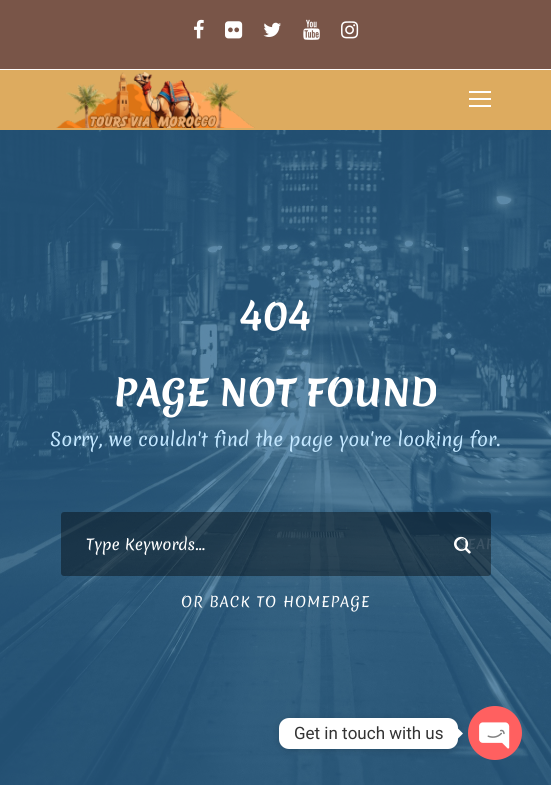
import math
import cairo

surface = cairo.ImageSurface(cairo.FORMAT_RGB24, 551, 785)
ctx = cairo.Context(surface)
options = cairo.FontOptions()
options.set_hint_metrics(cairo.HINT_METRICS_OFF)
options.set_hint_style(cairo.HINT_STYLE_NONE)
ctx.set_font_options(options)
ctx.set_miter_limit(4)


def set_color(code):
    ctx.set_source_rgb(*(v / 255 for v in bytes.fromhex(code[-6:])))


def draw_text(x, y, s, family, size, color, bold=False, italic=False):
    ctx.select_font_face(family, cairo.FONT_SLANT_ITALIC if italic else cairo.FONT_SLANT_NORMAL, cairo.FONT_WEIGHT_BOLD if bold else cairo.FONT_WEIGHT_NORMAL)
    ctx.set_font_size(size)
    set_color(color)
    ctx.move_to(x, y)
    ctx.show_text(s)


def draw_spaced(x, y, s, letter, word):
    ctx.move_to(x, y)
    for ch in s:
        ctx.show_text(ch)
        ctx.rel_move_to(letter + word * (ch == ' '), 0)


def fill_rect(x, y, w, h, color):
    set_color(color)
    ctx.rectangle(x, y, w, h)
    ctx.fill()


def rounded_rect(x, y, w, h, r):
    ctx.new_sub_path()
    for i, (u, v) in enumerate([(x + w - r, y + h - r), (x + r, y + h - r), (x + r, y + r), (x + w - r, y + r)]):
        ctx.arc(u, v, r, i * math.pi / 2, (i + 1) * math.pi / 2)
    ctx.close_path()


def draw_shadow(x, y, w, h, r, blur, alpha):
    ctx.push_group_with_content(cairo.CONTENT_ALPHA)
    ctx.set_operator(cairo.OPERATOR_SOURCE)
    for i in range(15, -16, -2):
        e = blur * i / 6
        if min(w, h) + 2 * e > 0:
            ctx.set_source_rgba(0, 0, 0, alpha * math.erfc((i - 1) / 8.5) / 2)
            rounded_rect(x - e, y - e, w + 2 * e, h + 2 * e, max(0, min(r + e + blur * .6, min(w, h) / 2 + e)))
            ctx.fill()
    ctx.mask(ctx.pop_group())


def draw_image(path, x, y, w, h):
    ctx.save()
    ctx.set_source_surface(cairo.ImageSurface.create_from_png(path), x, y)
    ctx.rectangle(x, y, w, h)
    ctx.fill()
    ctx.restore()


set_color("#ffffff")
ctx.paint()
fill_rect(0, 0, 551, 69, "#795548")
draw_image("assets/img1.png", 194, 19, 10, 20)
draw_image("assets/img2.png", 225, 21, 18, 18)
draw_image("assets/img3.png", 263, 22, 18, 15)
draw_image("assets/img4.png", 303, 19, 17, 21)
draw_image("assets/img5.png", 341, 21, 18, 18)
fill_rect(0, 70, 551, 60, "#ddab5f")
draw_image("assets/img6.png", 56, 72, 199, 56)
fill_rect(469, 91, 22, 2, "#ffffff")
fill_rect(469, 98, 22, 2, "#ffffff")
fill_rect(469, 105, 22, 2, "#ffffff")
fill_rect(0, 130, 551, 655, "#23618e")
draw_image("assets/img7.png", 0, 130, 551, 655)
draw_text(240, 330, "404", "Merienda", 40, "#ffffff", bold=True)
draw_text(114, 406, "PAGE NOT FOUND", "Merienda ExtraBold", 35, "#ffffff")
draw_text(50, 446, "Sorry, we couldn't find the page you're looking for.", "Merienda", 18, "#c3e7ff")
ctx.set_source_rgba(0, 0, 0, 0.4)
rounded_rect(61, 512, 430, 64, 3)
ctx.fill()
draw_text(86, 550, "Type Keywords...", "Merienda", 15, "#ffffff")
draw_image("assets/img8.png", 454, 536, 17, 18)
ctx.save()
ctx.rectangle(425, 512, 66, 64)
ctx.clip()
ctx.select_font_face("Merienda", cairo.FONT_SLANT_NORMAL, cairo.FONT_WEIGHT_BOLD)
ctx.set_font_size(13)
set_color("#3b5263")
draw_spaced(458, 549, "SEAR", 1, 0)
ctx.restore()
ctx.set_font_size(14)
draw_spaced(181, 607, "OR BACK TO HOMEPAGE", 1, 0)
set_color("#000000")
draw_shadow(279, 719, 179, 31, 10, 4, 0.15)
set_color("#ffffff")
rounded_rect(279, 718, 179, 31, 10)
ctx.fill()
draw_text(294, 739, "Get in touch with us", "Roboto", 17, "#333333")
set_color("#ffffff")
ctx.new_path()
ctx.move_to(458, 738.5)
ctx.line_to(458, 728.5)
ctx.line_to(463, 733.5)
ctx.close_path()
ctx.fill()
draw_image("assets/img9.png", 468, 706, 54, 54)
surface.write_to_png("output.png")
